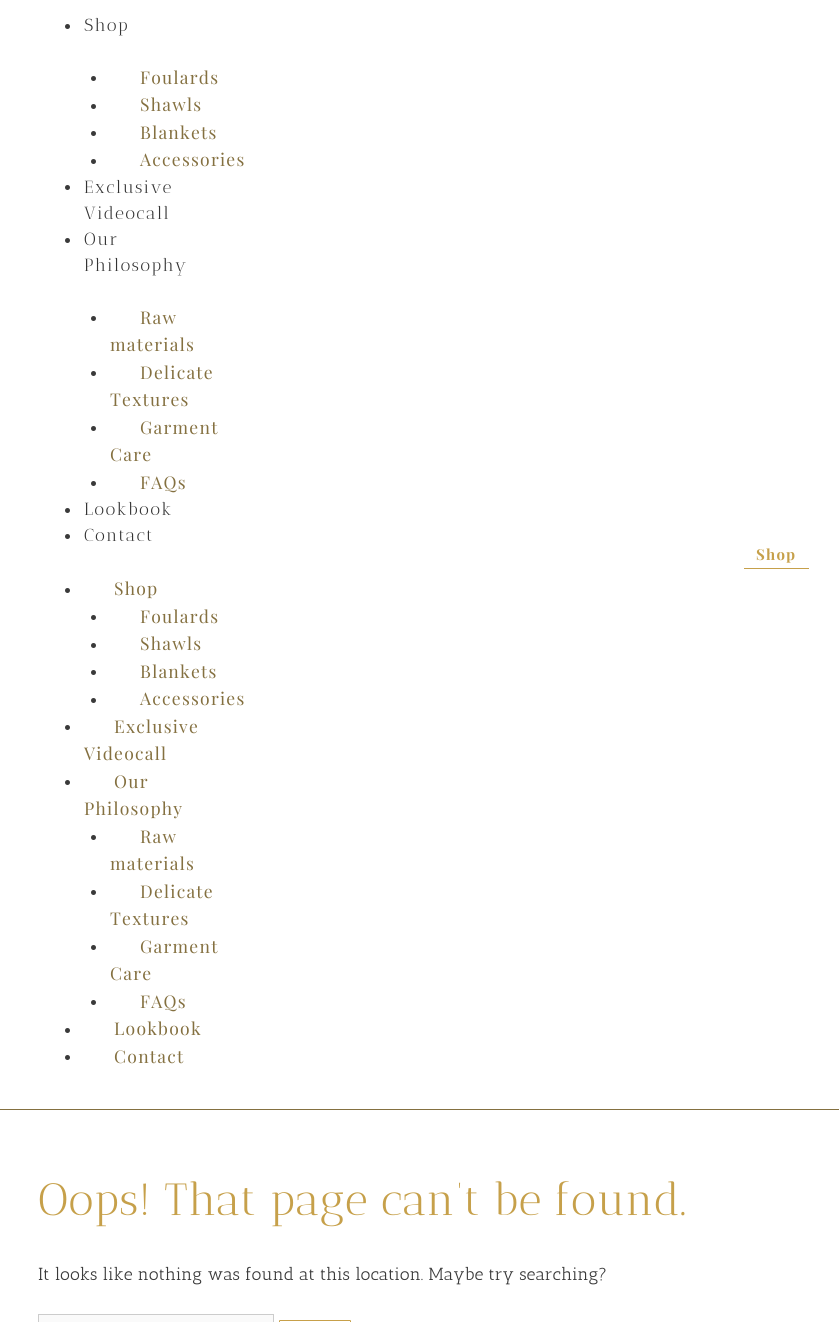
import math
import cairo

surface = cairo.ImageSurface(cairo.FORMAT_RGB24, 839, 1322)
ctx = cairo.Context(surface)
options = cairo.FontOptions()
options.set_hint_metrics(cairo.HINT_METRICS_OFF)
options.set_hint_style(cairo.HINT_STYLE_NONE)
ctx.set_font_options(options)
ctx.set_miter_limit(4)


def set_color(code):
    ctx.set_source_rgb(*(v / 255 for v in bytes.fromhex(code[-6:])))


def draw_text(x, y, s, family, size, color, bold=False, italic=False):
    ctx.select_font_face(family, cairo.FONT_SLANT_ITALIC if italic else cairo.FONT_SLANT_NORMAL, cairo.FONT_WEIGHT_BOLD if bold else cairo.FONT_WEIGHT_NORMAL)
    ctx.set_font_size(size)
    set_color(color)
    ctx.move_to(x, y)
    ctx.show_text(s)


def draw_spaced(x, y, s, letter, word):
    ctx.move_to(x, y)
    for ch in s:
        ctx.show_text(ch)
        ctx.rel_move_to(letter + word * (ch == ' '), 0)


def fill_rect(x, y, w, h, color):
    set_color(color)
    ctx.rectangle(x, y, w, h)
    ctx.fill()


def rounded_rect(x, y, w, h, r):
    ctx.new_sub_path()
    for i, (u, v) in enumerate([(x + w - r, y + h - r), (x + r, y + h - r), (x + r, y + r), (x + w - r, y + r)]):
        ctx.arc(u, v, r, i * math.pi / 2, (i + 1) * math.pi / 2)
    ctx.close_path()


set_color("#ffffff")
ctx.paint()
fill_rect(0, 1109, 839, 1, "#847040")
set_color("#3a3a3a")
ctx.arc(67.5, 26.5, 2.5, 0, 2 * math.pi)
ctx.fill()
ctx.select_font_face("Antic Didone")
ctx.set_font_size(17.5)
set_color("#333333")
draw_spaced(84, 31, "Shop", 1.25, 0)
set_color("#3a3a3a")
ctx.new_path()
ctx.arc(93.5, 78.5, 2.5, 0, 2 * math.pi)
ctx.fill()
ctx.select_font_face("Playfair Display")
set_color("#847040")
draw_spaced(140, 84, "Foulards", 1.25, 0)
set_color("#3a3a3a")
ctx.new_path()
ctx.arc(93.5, 106.5, 2.5, 0, 2 * math.pi)
ctx.fill()
set_color("#847040")
draw_spaced(140, 111, "Shawls", 1.25, 0)
set_color("#3a3a3a")
ctx.new_path()
ctx.arc(93.5, 133.5, 2.5, 0, 2 * math.pi)
ctx.fill()
set_color("#847040")
draw_spaced(140, 139, "Blankets", 1.25, 0)
set_color("#3a3a3a")
ctx.new_path()
ctx.arc(93.5, 161.5, 2.5, 0, 2 * math.pi)
ctx.fill()
set_color("#847040")
draw_spaced(140, 166, "Accessories", 1.25, 0)
set_color("#3a3a3a")
ctx.new_path()
ctx.arc(67.5, 187.5, 2.5, 0, 2 * math.pi)
ctx.fill()
ctx.select_font_face("Antic Didone")
set_color("#333333")
draw_spaced(84, 193, "Exclusive", 1.25, 0)
draw_spaced(84, 219, "Videocall", 1.25, 0)
set_color("#3a3a3a")
ctx.new_path()
ctx.arc(67.5, 240.5, 2.5, 0, 2 * math.pi)
ctx.fill()
set_color("#333333")
draw_spaced(84, 245, "Our", 1.25, 0)
draw_spaced(84, 271, "Philosophy", 1.25, 0)
set_color("#3a3a3a")
ctx.new_path()
ctx.arc(93.5, 318.5, 2.5, 0, 2 * math.pi)
ctx.fill()
ctx.select_font_face("Playfair Display")
set_color("#847040")
draw_spaced(140, 324, "Raw", 1.25, 0)
draw_spaced(110, 351, "materials", 1.25, 0)
set_color("#3a3a3a")
ctx.new_path()
ctx.arc(93.5, 373.5, 2.5, 0, 2 * math.pi)
ctx.fill()
set_color("#847040")
draw_spaced(140, 379, "Delicate", 1.25, 0)
draw_spaced(110, 406, "Textures", 1.25, 0)
set_color("#3a3a3a")
ctx.new_path()
ctx.arc(93.5, 428.5, 2.5, 0, 2 * math.pi)
ctx.fill()
set_color("#847040")
draw_spaced(140, 434, "Garment", 1.25, 0)
draw_spaced(110, 461, "Care", 1.25, 0)
set_color("#3a3a3a")
ctx.new_path()
ctx.arc(93.5, 483.5, 2.5, 0, 2 * math.pi)
ctx.fill()
set_color("#847040")
draw_spaced(140, 489, "FAQs", 1.25, 0)
set_color("#3a3a3a")
ctx.new_path()
ctx.arc(67.5, 510.5, 2.5, 0, 2 * math.pi)
ctx.fill()
ctx.select_font_face("Antic Didone")
set_color("#333333")
draw_spaced(84, 515, "Lookbook", 1.25, 0)
set_color("#3a3a3a")
ctx.new_path()
ctx.arc(67.5, 536.5, 2.5, 0, 2 * math.pi)
ctx.fill()
set_color("#333333")
draw_spaced(84, 541, "Contact", 1.25, 0)
set_color("#3a3a3a")
ctx.new_path()
ctx.arc(67.5, 590.5, 2.5, 0, 2 * math.pi)
ctx.fill()
ctx.select_font_face("Playfair Display")
set_color("#847040")
draw_spaced(114, 595, "Shop", 1.25, 0)
set_color("#3a3a3a")
ctx.new_path()
ctx.arc(93.5, 617.5, 2.5, 0, 2 * math.pi)
ctx.fill()
set_color("#847040")
draw_spaced(140, 623, "Foulards", 1.25, 0)
set_color("#3a3a3a")
ctx.new_path()
ctx.arc(93.5, 645.5, 2.5, 0, 2 * math.pi)
ctx.fill()
set_color("#847040")
draw_spaced(140, 650, "Shawls", 1.25, 0)
set_color("#3a3a3a")
ctx.new_path()
ctx.arc(93.5, 672.5, 2.5, 0, 2 * math.pi)
ctx.fill()
set_color("#847040")
draw_spaced(140, 678, "Blankets", 1.25, 0)
set_color("#3a3a3a")
ctx.new_path()
ctx.arc(93.5, 700.5, 2.5, 0, 2 * math.pi)
ctx.fill()
set_color("#847040")
draw_spaced(140, 705, "Accessories", 1.25, 0)
set_color("#3a3a3a")
ctx.new_path()
ctx.arc(67.5, 727.5, 2.5, 0, 2 * math.pi)
ctx.fill()
set_color("#847040")
draw_spaced(114, 733, "Exclusive", 1.25, 0)
draw_spaced(84, 760, "Videocall", 1.25, 0)
set_color("#3a3a3a")
ctx.new_path()
ctx.arc(67.5, 782.5, 2.5, 0, 2 * math.pi)
ctx.fill()
set_color("#847040")
draw_spaced(114, 788, "Our", 1.25, 0)
draw_spaced(84, 815, "Philosophy", 1.25, 0)
set_color("#3a3a3a")
ctx.new_path()
ctx.arc(93.5, 837.5, 2.5, 0, 2 * math.pi)
ctx.fill()
set_color("#847040")
draw_spaced(140, 843, "Raw", 1.25, 0)
draw_spaced(110, 870, "materials", 1.25, 0)
set_color("#3a3a3a")
ctx.new_path()
ctx.arc(93.5, 892.5, 2.5, 0, 2 * math.pi)
ctx.fill()
set_color("#847040")
draw_spaced(140, 898, "Delicate", 1.25, 0)
draw_spaced(110, 925, "Textures", 1.25, 0)
set_color("#3a3a3a")
ctx.new_path()
ctx.arc(93.5, 947.5, 2.5, 0, 2 * math.pi)
ctx.fill()
set_color("#847040")
draw_spaced(140, 953, "Garment", 1.25, 0)
draw_spaced(110, 980, "Care", 1.25, 0)
set_color("#3a3a3a")
ctx.new_path()
ctx.arc(93.5, 1002.5, 2.5, 0, 2 * math.pi)
ctx.fill()
set_color("#847040")
draw_spaced(140, 1008, "FAQs", 1.25, 0)
set_color("#3a3a3a")
ctx.new_path()
ctx.arc(67.5, 1030.5, 2.5, 0, 2 * math.pi)
ctx.fill()
set_color("#847040")
draw_spaced(114, 1035, "Lookbook", 1.25, 0)
set_color("#3a3a3a")
ctx.new_path()
ctx.arc(67.5, 1057.5, 2.5, 0, 2 * math.pi)
ctx.fill()
set_color("#847040")
draw_spaced(114, 1063, "Contact", 1.25, 0)
fill_rect(744, 568, 65, 1, "#c6a04a")
ctx.select_font_face("Playfair Display", cairo.FONT_SLANT_NORMAL, cairo.FONT_WEIGHT_BOLD)
ctx.set_font_size(15)
draw_spaced(756, 560, "Shop", 1.25, 0)
draw_text(38, 1215, "Oops! That page can’t be found.", "Antic Didone", 45, "#c6a04a")
draw_text(38, 1280, "It looks like nothing was found at this location. Maybe try searching?", "Antic Slab", 17.5, "#3a3a3a")
set_color("#fafafa")
ctx.rectangle(38.5, 1314.5, 235, 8)
ctx.fill_preserve()
set_color("#cccccc")
ctx.set_line_width(1)
ctx.stroke()
rounded_rect(279.5, 1320.5, 71, 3, 0.5)
set_color("#c7a04a")
ctx.stroke()
surface.write_to_png("output.png")
